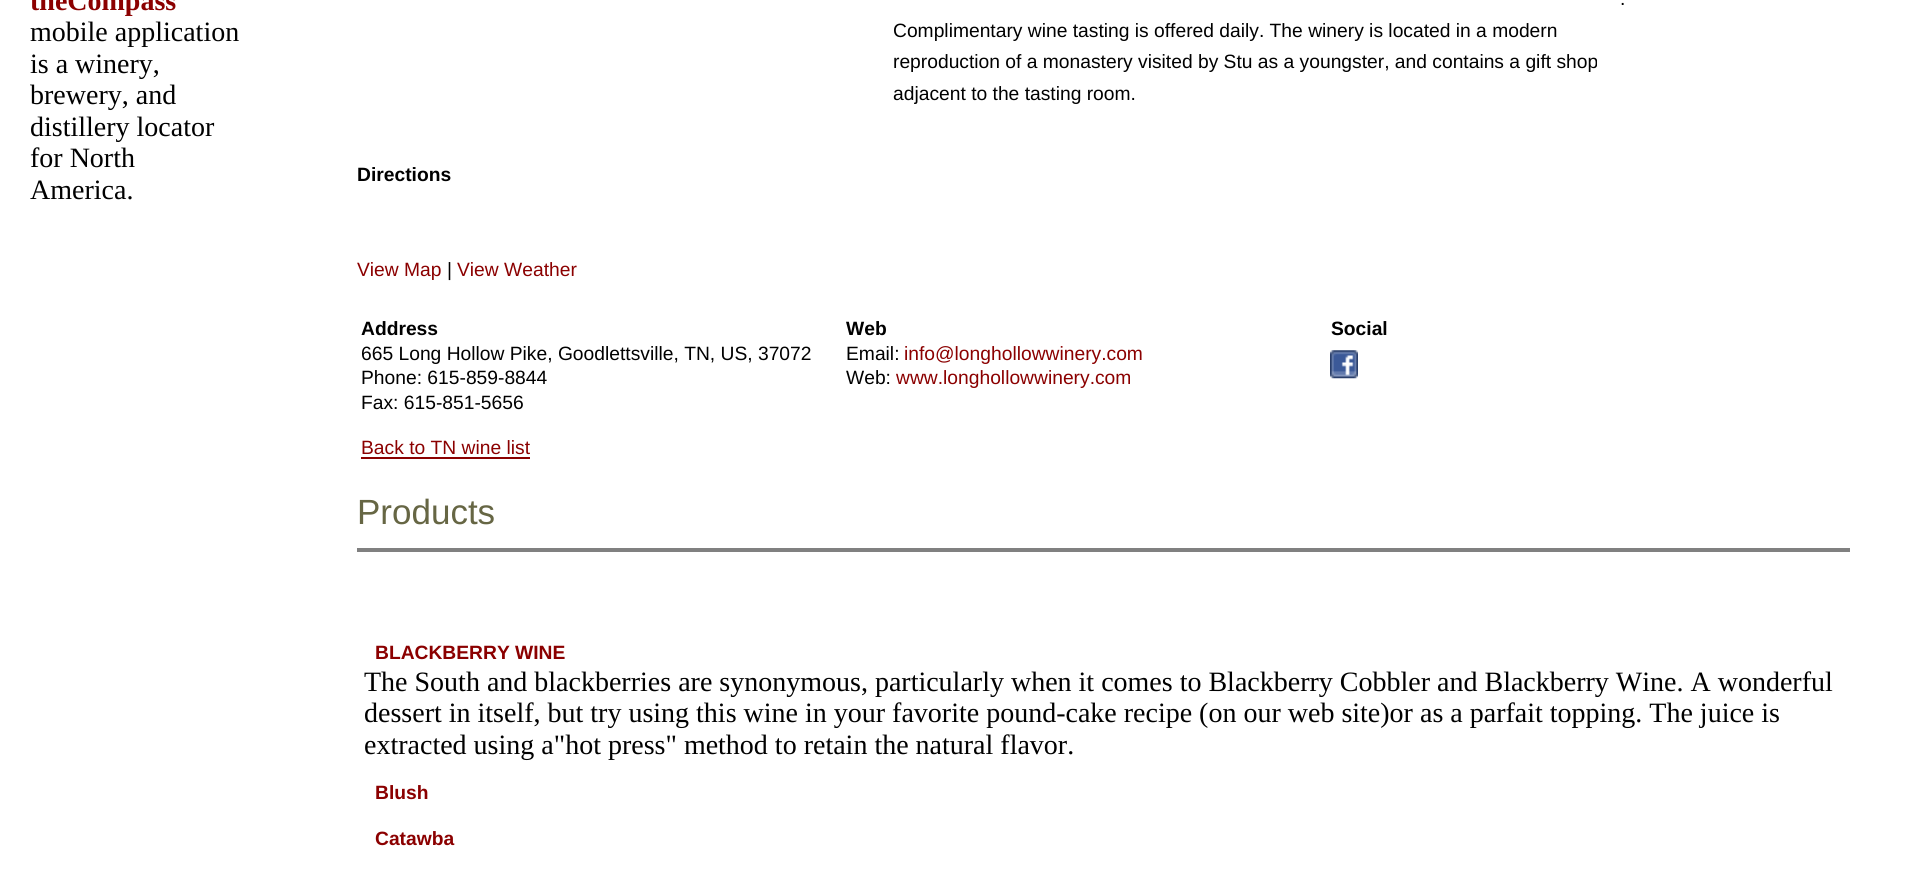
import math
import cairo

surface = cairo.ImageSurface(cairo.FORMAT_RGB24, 1917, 885)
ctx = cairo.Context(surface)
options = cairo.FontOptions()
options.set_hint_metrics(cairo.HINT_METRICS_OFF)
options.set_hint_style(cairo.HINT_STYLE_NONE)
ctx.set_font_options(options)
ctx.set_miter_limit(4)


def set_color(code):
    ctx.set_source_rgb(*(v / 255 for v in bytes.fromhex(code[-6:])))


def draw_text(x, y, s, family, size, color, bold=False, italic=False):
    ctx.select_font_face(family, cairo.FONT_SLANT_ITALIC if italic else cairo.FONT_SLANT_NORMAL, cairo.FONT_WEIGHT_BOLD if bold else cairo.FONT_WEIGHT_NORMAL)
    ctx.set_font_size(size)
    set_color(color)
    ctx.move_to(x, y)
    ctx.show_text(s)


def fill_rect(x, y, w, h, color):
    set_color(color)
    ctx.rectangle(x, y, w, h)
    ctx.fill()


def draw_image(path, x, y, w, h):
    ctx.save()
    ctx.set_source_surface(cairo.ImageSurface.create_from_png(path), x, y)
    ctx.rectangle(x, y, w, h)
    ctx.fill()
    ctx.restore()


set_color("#ffffff")
ctx.paint()
draw_text(30, 10, "theCompass", "Liberation Serif", 28, "#8b0000", bold=True)
draw_text(30, 41, "mobile application", "Liberation Serif", 28, "#000000")
draw_text(30, 73, "is a winery,", "Liberation Serif", 28, "#000000")
draw_text(30, 104, "brewery, and", "Liberation Serif", 28, "#000000")
draw_text(30, 136, "distillery locator", "Liberation Serif", 28, "#000000")
draw_text(30, 167, "for North", "Liberation Serif", 28, "#000000")
draw_text(30, 199, "America.", "Liberation Serif", 28, "#000000")
draw_text(1620, 5, ".", "Liberation Sans", 19.25, "#000000")
draw_text(893, 37, "Complimentary wine tasting is offered daily. The winery is located in a modern", "Liberation Sans", 19.25, "#000000")
draw_text(893, 68, "reproduction of a monastery visited by Stu as a youngster, and contains a gift shop", "Liberation Sans", 19.25, "#000000")
draw_text(893, 100, "adjacent to the tasting room.", "Liberation Sans", 19.25, "#000000")
draw_text(357, 181, "Directions", "Liberation Sans", 19.25, "#000000", bold=True)
draw_text(357, 276, "View Map", "Liberation Sans", 19.25, "#8b0000")
draw_text(447, 276, "|", "Liberation Sans", 19.25, "#000000")
draw_text(457, 276, "View Weather", "Liberation Sans", 19.25, "#8b0000")
draw_text(361, 335, "Address", "Liberation Sans", 19.25, "#000000", bold=True)
draw_text(846, 335, "Web", "Liberation Sans", 19.25, "#000000", bold=True)
draw_text(1331, 335, "Social", "Liberation Sans", 19.25, "#000000", bold=True)
draw_text(361, 360, "665 Long Hollow Pike, Goodlettsville, TN, US, 37072", "Liberation Sans", 19.25, "#000000")
draw_text(846, 360, "Email:", "Liberation Sans", 19.25, "#000000")
draw_text(904, 360, "info@longhollowwinery.com", "Liberation Sans", 19.25, "#8b0000")
draw_image("assets/img1.png", 1330, 350, 28, 29)
draw_text(361, 384, "Phone: 615-859-8844", "Liberation Sans", 19.25, "#000000")
draw_text(846, 384, "Web:", "Liberation Sans", 19.25, "#000000")
draw_text(896, 384, "www.longhollowwinery.com", "Liberation Sans", 19.25, "#8b0000")
draw_text(361, 409, "Fax: 615-851-5656", "Liberation Sans", 19.25, "#000000")
draw_text(361, 454, "Back to TN wine list", "Liberation Sans", 19.25, "#8b0000")
fill_rect(361, 457, 169, 2, "#8b0000")
draw_text(357, 524, "Products", "Liberation Sans", 35, "#666644")
fill_rect(359, 550, 1489, 2, "#808080")
fill_rect(357, 548, 1493, 2, "#808080")
fill_rect(1848, 548, 2, 4, "#808080")
fill_rect(357, 548, 2, 4, "#808080")
draw_text(375, 659, "BLACKBERRY WINE", "Liberation Sans", 19.25, "#8b0000", bold=True)
draw_text(364, 691, "The South and blackberries are synonymous, particularly when it comes to Blackberry Cobbler and Blackberry Wine. A wonderful", "Liberation Serif", 28, "#000000")
draw_text(364, 722, "dessert in itself, but try using this wine in your favorite pound-cake recipe (on our web site)or as a parfait topping. The juice is", "Liberation Serif", 28, "#000000")
draw_text(364, 754, "extracted using a\"hot press\" method to retain the natural flavor.", "Liberation Serif", 28, "#000000")
draw_text(375, 799, "Blush", "Liberation Sans", 19.25, "#8b0000", bold=True)
draw_text(375, 845, "Catawba", "Liberation Sans", 19.25, "#8b0000", bold=True)
surface.write_to_png("output.png")
